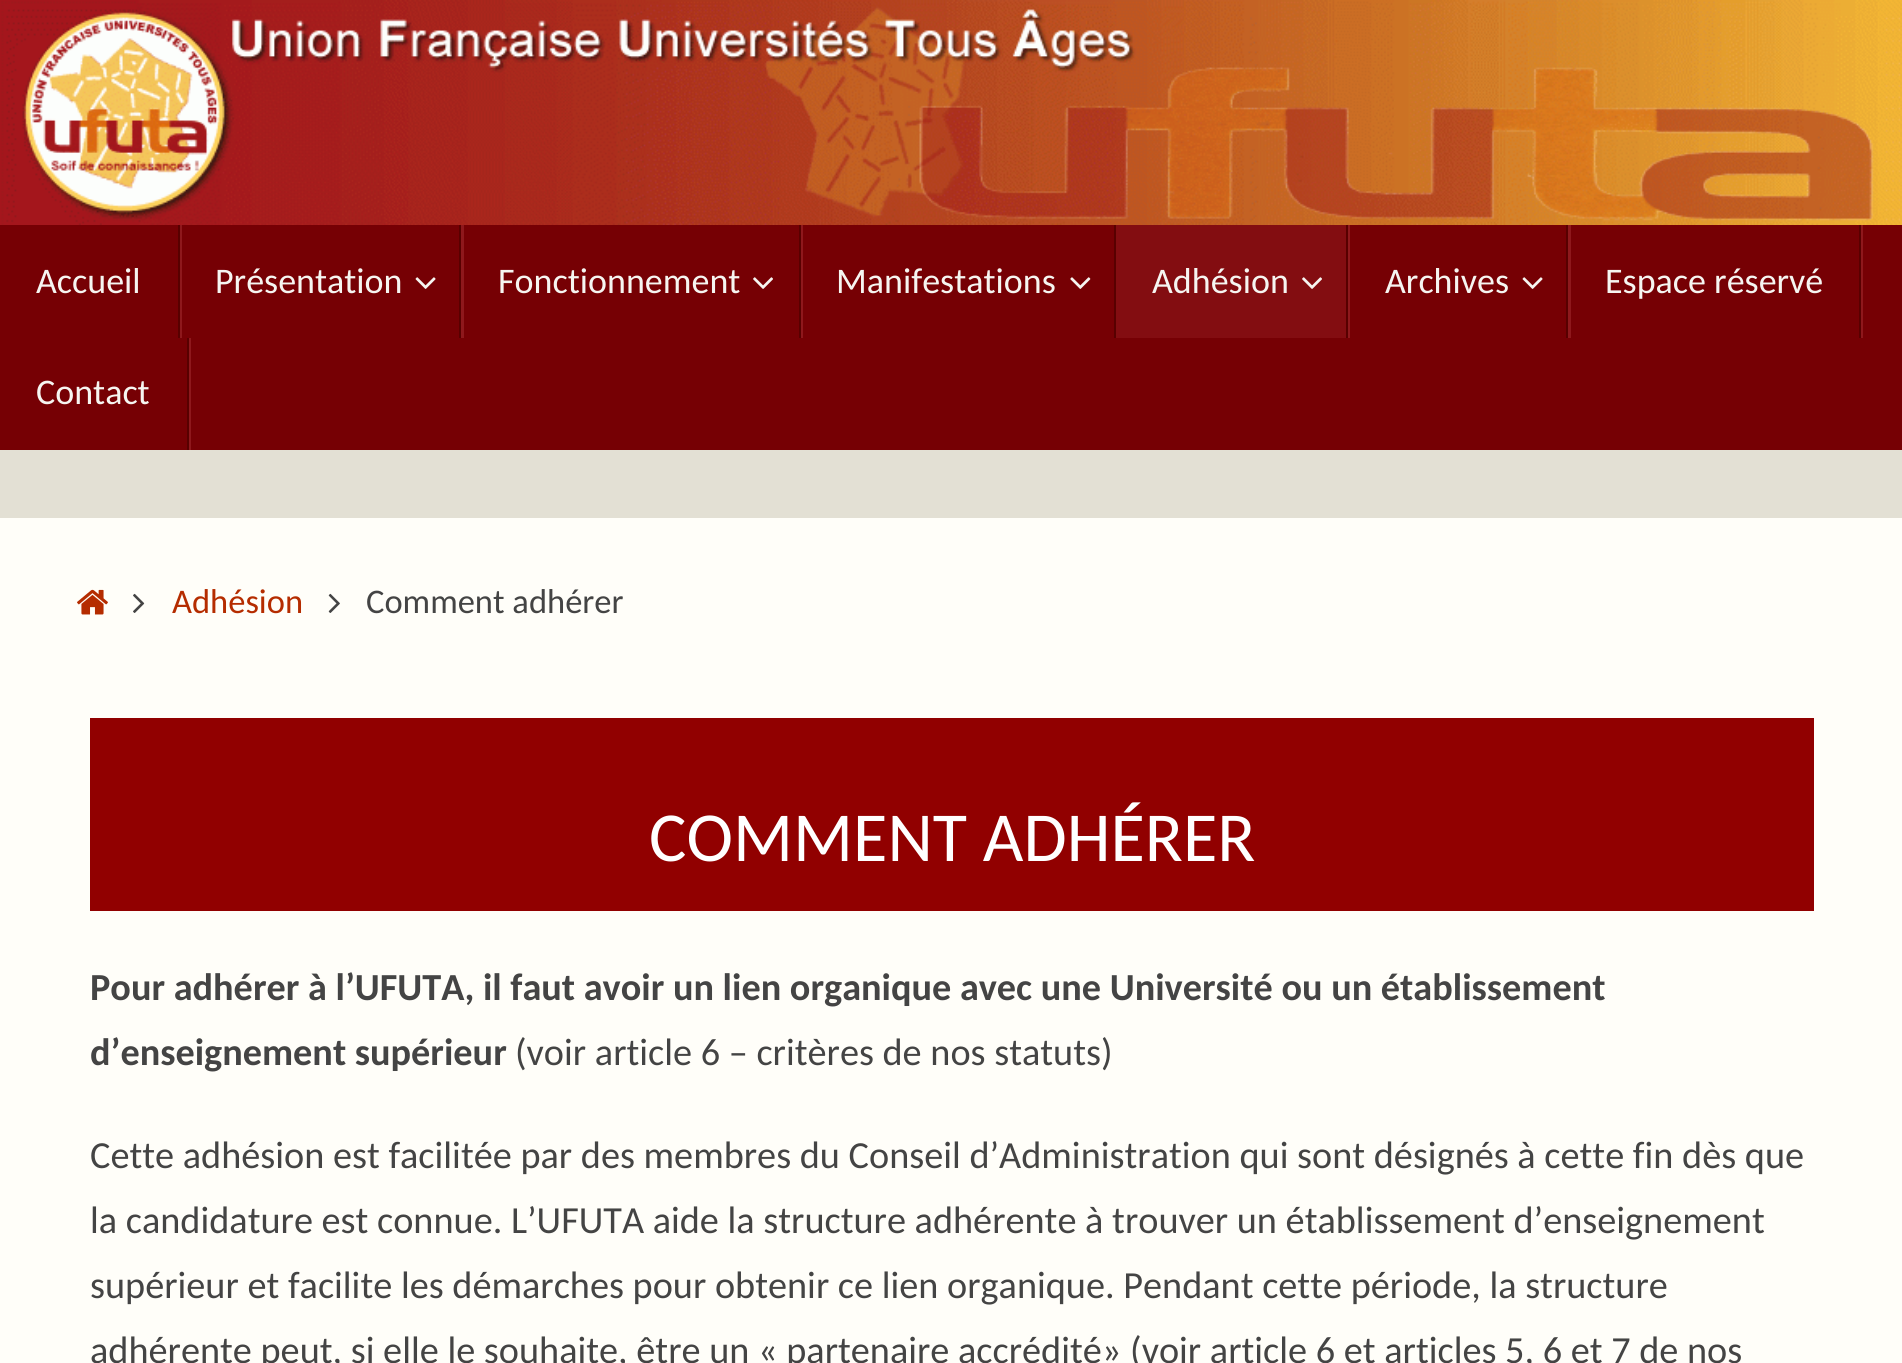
import math
import cairo

surface = cairo.ImageSurface(cairo.FORMAT_RGB24, 1902, 1363)
ctx = cairo.Context(surface)
options = cairo.FontOptions()
options.set_hint_metrics(cairo.HINT_METRICS_OFF)
options.set_hint_style(cairo.HINT_STYLE_NONE)
ctx.set_font_options(options)
ctx.set_miter_limit(4)


def set_color(code):
    ctx.set_source_rgb(*(v / 255 for v in bytes.fromhex(code[-6:])))


def draw_text(x, y, s, family, size, color, bold=False, italic=False):
    ctx.select_font_face(family, cairo.FONT_SLANT_ITALIC if italic else cairo.FONT_SLANT_NORMAL, cairo.FONT_WEIGHT_BOLD if bold else cairo.FONT_WEIGHT_NORMAL)
    ctx.set_font_size(size)
    set_color(color)
    ctx.move_to(x, y)
    ctx.show_text(s)


def fill_rect(x, y, w, h, color):
    set_color(color)
    ctx.rectangle(x, y, w, h)
    ctx.fill()


def draw_image(path, x, y, w, h):
    ctx.save()
    ctx.set_source_surface(cairo.ImageSurface.create_from_png(path), x, y)
    ctx.rectangle(x, y, w, h)
    ctx.fill()
    ctx.restore()


set_color("#e3e0d4")
ctx.paint()
draw_image("assets/img1.png", 0, 0, 1902, 225)
fill_rect(0, 225, 1902, 225, "#760004")
set_color("#8e181c")
ctx.new_path()
ctx.move_to(2, 338)
ctx.line_to(182, 338)
ctx.line_to(182, 225)
ctx.line_to(180, 225)
ctx.line_to(180, 338)
ctx.close_path()
ctx.fill()
fill_rect(178, 225, 2, 113, "#580000")
draw_text(36, 293, "Accueil", "Carlito", 36, "#f6f5f1")
set_color("#8e181c")
ctx.new_path()
ctx.move_to(182, 338)
ctx.line_to(464, 338)
ctx.line_to(464, 225)
ctx.line_to(461, 225)
ctx.line_to(461, 338)
ctx.close_path()
ctx.fill()
fill_rect(459, 225, 2, 113, "#580000")
draw_text(215, 293, "Présentation", "Carlito", 36, "#f6f5f1")
draw_image("assets/img2.png", 415, 277, 21, 12)
set_color("#8e181c")
ctx.new_path()
ctx.move_to(464, 338)
ctx.line_to(803, 338)
ctx.line_to(803, 225)
ctx.line_to(801, 225)
ctx.line_to(801, 338)
ctx.close_path()
ctx.fill()
fill_rect(799, 225, 2, 113, "#580000")
draw_text(498, 293, "Fonctionnement", "Carlito", 36, "#f6f5f1")
draw_image("assets/img3.png", 753, 277, 20, 12)
fill_rect(1114, 225, 2, 113, "#580000")
draw_text(836, 293, "Manifestations", "Carlito", 36, "#f6f5f1")
draw_image("assets/img4.png", 1070, 277, 21, 12)
fill_rect(1116, 225, 230, 113, "#830d11")
set_color("#8e181c")
ctx.new_path()
ctx.move_to(1118, 338)
ctx.line_to(1350, 338)
ctx.line_to(1350, 225)
ctx.line_to(1348, 225)
ctx.line_to(1348, 338)
ctx.close_path()
ctx.fill()
fill_rect(1346, 225, 2, 113, "#580000")
draw_text(1152, 293, "Adhésion", "Carlito", 36, "#f6f5f1")
draw_image("assets/img5.png", 1302, 277, 20, 12)
set_color("#8e181c")
ctx.new_path()
ctx.move_to(1350, 338)
ctx.line_to(1571, 338)
ctx.line_to(1571, 225)
ctx.line_to(1568, 225)
ctx.line_to(1568, 338)
ctx.close_path()
ctx.fill()
fill_rect(1566, 225, 2, 113, "#580000")
draw_text(1385, 293, "Archives", "Carlito", 36, "#f6f5f1")
draw_image("assets/img2.png", 1522, 277, 21, 12)
set_color("#8e181c")
ctx.new_path()
ctx.move_to(1571, 338)
ctx.line_to(1863, 338)
ctx.line_to(1863, 225)
ctx.line_to(1861, 225)
ctx.line_to(1861, 338)
ctx.close_path()
ctx.fill()
fill_rect(1859, 225, 2, 113, "#580000")
draw_text(1605, 293, "Espace réservé", "Carlito", 36, "#f6f5f1")
fill_rect(189, 338, 2, 112, "#8e181c")
fill_rect(187, 338, 2, 112, "#580000")
draw_text(36, 404, "Contact", "Carlito", 36, "#f6f5f1")
fill_rect(0, 518, 1902, 845, "#fffef9")
draw_image("assets/img6.png", 77, 589, 31, 26)
draw_image("assets/img7.png", 133, 593, 12, 20)
draw_text(172, 613, "Adhésion", "Carlito", 34.5, "#b52c00")
draw_image("assets/img8.png", 328, 593, 12, 20)
draw_text(366, 613, "Comment adhérer", "Carlito", 34.5, "#444444")
fill_rect(90, 718, 1724, 193, "#910000")
draw_text(649, 861, "COMMENT ADHÉRER", "Carlito", 70.25, "#ffffff")
draw_text(90, 1000, "Pour adhérer à l’UFUTA, il faut avoir un lien organique avec une Université ou un établissement", "Carlito", 38.25, "#444444", bold=True)
draw_text(90, 1065, "d’enseignement supérieur", "Carlito", 38.25, "#444444", bold=True)
draw_text(515, 1065, "(voir article 6 – critères de nos statuts)", "Carlito", 38.25, "#444444")
draw_text(90, 1168, "Cette adhésion est facilitée par des membres du Conseil d’Administration qui sont désignés à cette fin dès que", "Carlito", 38.25, "#444444")
draw_text(90, 1233, "la candidature est connue. L’UFUTA aide la structure adhérente à trouver un établissement d’enseignement", "Carlito", 38.25, "#444444")
draw_text(90, 1298, "supérieur et facilite les démarches pour obtenir ce lien organique. Pendant cette période, la structure", "Carlito", 38.25, "#444444")
draw_text(90, 1363, "adhérente peut, si elle le souhaite, être un « partenaire accrédité» (voir article 6 et articles 5, 6 et 7 de nos", "Carlito", 38.25, "#444444")
surface.write_to_png("output.png")
